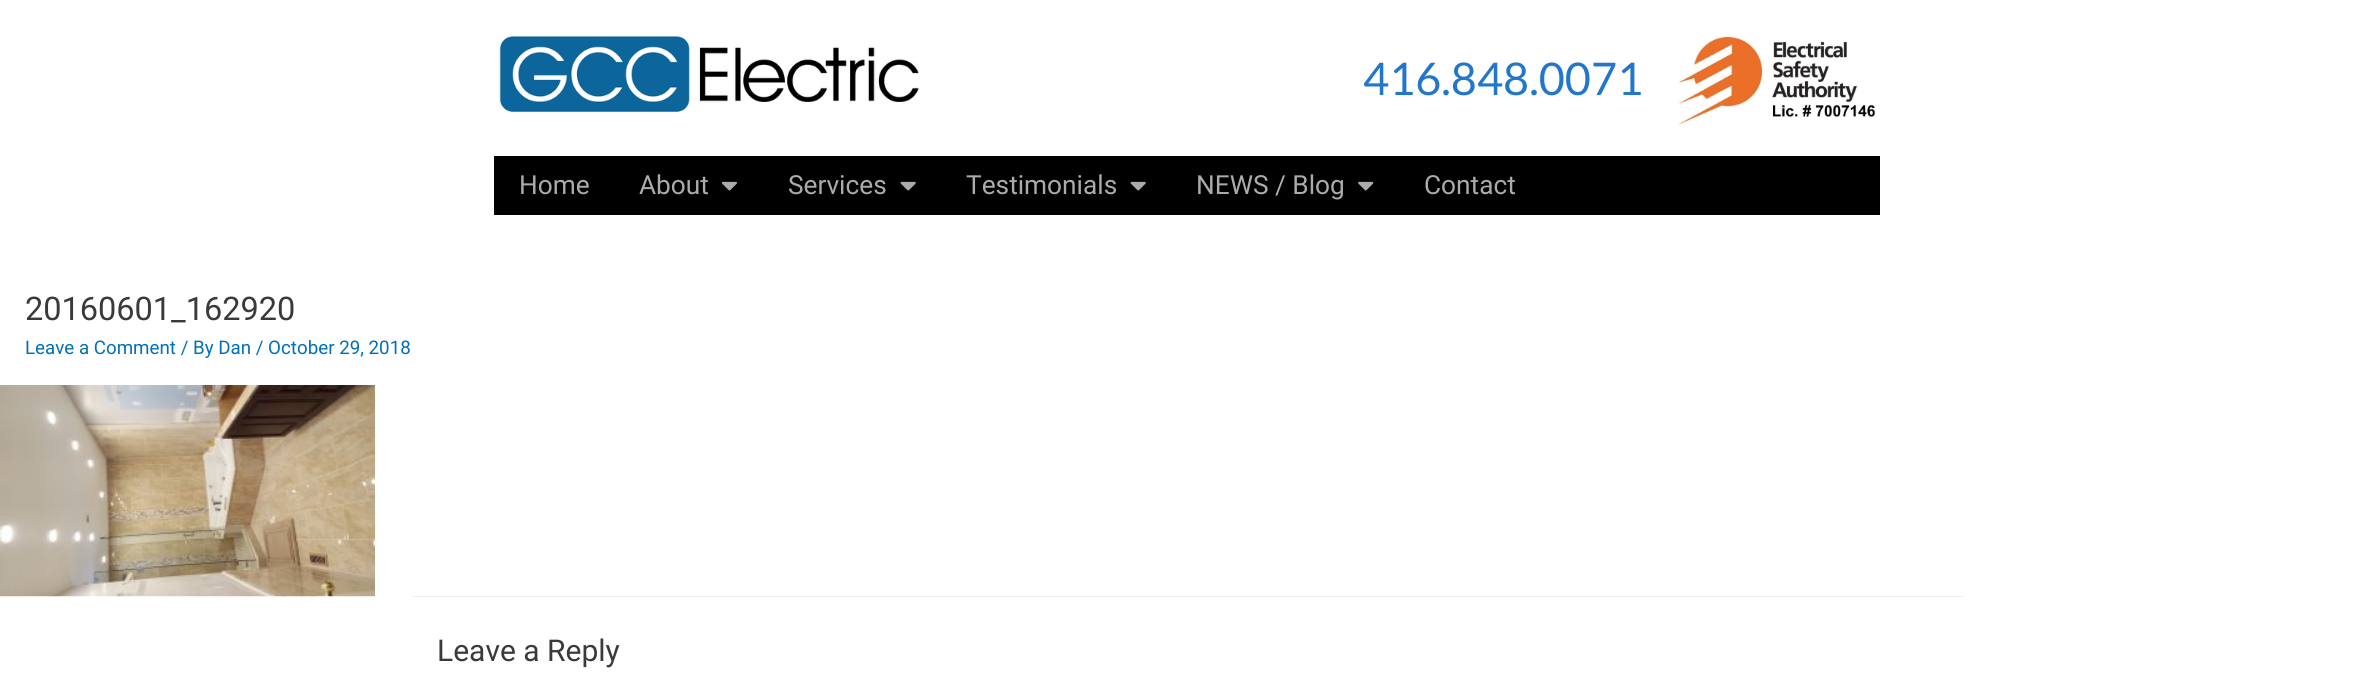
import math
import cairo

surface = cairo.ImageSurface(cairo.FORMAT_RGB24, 2373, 676)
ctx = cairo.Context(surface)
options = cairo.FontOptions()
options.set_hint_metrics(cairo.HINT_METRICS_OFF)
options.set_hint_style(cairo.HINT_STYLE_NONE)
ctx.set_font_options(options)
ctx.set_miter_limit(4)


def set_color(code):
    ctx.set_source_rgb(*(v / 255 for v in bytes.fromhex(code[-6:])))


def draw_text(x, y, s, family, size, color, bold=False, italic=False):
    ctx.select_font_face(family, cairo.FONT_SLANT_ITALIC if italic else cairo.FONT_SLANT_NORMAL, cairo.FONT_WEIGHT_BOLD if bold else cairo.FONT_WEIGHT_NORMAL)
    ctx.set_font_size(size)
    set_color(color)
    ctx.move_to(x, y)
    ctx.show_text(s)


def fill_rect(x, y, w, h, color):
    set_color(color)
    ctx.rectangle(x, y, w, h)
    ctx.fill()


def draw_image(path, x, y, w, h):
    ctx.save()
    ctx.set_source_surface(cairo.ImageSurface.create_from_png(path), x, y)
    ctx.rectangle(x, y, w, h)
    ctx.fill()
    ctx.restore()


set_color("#ffffff")
ctx.paint()
draw_image("assets/img1.png", 499, 36, 420, 76)
draw_text(1363, 95, "416.848.0071", "Lato", 45, "#2276cc")
draw_image("assets/img2.png", 1678, 35, 198, 90)
fill_rect(494, 156, 1386, 59, "#000000")
draw_text(519, 194, "Home", "Roboto", 26.25, "#acabab")
draw_text(639, 194, "About", "Roboto", 26.25, "#acabab")
draw_image("assets/img3.png", 721, 181, 16, 10)
draw_text(788, 194, "Services", "Roboto", 26.25, "#acabab")
draw_image("assets/img4.png", 900, 181, 16, 10)
draw_text(966, 194, "Testimonials", "Roboto", 26.25, "#acabab")
draw_image("assets/img4.png", 1130, 181, 16, 10)
draw_text(1196, 194, "NEWS / Blog", "Roboto", 26.25, "#acabab")
draw_image("assets/img5.png", 1358, 181, 16, 10)
draw_text(1424, 194, "Contact", "Roboto", 26.25, "#acabab")
draw_text(25, 320, "20160601_162920", "Roboto", 32.5, "#3a3a3a")
draw_text(25, 354, "Leave a Comment / By Dan / October 29, 2018", "Roboto", 18.75, "#0170b9")
draw_image("assets/img6.png", 0, 385, 375, 212)
fill_rect(413, 596, 1550, 1, "#eeeeee")
draw_text(437, 661, "Leave a Reply", "Roboto", 30, "#3a3a3a")
surface.write_to_png("output.png")
